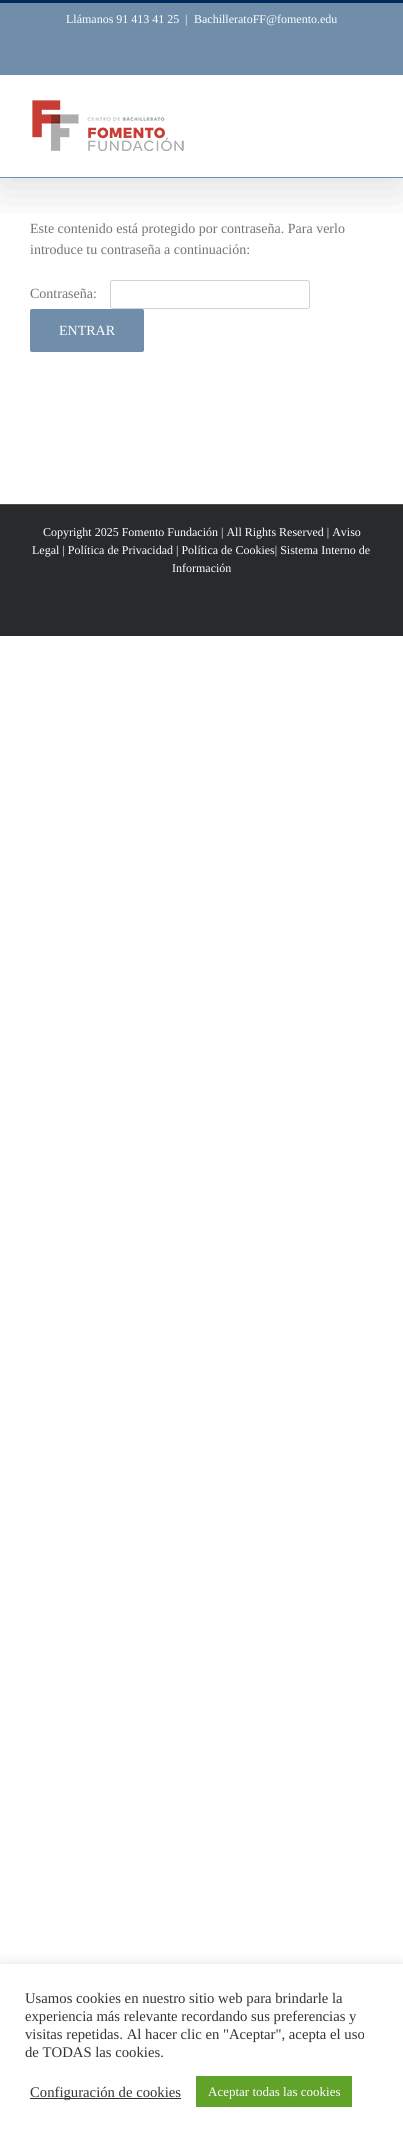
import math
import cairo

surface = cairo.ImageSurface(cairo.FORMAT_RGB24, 403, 2137)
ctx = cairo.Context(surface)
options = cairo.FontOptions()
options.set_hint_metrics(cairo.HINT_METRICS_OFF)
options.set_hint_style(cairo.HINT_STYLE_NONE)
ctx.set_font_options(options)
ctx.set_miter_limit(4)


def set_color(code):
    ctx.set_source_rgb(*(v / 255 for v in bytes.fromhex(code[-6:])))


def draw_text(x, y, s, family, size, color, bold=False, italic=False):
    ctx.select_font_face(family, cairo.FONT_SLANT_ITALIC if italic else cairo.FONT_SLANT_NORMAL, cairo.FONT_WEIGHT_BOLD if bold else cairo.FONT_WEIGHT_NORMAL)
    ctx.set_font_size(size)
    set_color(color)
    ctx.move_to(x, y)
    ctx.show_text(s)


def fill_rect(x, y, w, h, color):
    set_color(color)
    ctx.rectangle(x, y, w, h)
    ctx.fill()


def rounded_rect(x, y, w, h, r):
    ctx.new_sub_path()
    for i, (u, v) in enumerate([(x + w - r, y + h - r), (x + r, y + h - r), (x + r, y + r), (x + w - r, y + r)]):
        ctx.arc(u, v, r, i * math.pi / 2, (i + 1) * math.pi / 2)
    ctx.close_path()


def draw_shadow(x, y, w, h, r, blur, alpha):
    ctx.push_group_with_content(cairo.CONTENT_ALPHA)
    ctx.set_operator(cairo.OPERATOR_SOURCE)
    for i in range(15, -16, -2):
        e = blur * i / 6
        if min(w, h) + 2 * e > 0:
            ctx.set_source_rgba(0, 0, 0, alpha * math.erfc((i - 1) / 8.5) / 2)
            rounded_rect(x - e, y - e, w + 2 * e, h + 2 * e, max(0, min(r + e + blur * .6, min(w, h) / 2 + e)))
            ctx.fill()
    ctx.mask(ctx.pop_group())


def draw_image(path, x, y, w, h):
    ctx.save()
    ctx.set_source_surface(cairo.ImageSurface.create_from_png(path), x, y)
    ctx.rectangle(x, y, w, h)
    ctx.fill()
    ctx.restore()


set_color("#ffffff")
ctx.paint()
ctx.save()
ctx.rectangle(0, 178, 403, 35)
ctx.clip()
set_color("#000000")
draw_shadow(2, 12, 399, 174, 0, 25, 0.14)
ctx.restore()
fill_rect(0, 3, 403, 72, "#708eaa")
fill_rect(0, 0, 403, 3, "#00295c")
draw_text(66, 23, "Llámanos 91 413 41 25", "Liberation Serif", 12, "#ffffff")
draw_text(185, 23, "|", "Liberation Serif", 12, "#ffffff")
draw_text(194, 23, "BachilleratoFF@fomento.edu", "Liberation Serif", 12, "#ffffff")
fill_rect(0, 177, 403, 1, "#708eaa")
draw_image("assets/img1.png", 32, 100, 152, 51)
draw_text(30, 233, "Este contenido está protegido por contraseña. Para verlo", "Liberation Serif", 14, "#747474")
draw_text(30, 254, "introduce tu contraseña a continuación:", "Liberation Serif", 14, "#747474")
draw_text(30, 298, "Contraseña:", "Liberation Serif", 14, "#747474")
rounded_rect(110.5, 280.5, 199, 28, 2.5)
set_color("#d2d2d2")
ctx.set_line_width(1)
ctx.stroke()
set_color("#708eaa")
rounded_rect(30, 309, 114, 43, 2)
ctx.fill()
draw_text(59, 335, "ENTRAR", "Liberation Serif", 14, "#ffffff")
fill_rect(0, 505, 403, 131, "#282a2b")
fill_rect(0, 504, 403, 1, "#4b4c4d")
draw_text(43, 536, "Copyright 2025 Fomento Fundación | All Rights Reserved | Aviso", "Liberation Serif", 12, "#ffffff")
draw_text(32, 554, "Legal | Política de Privacidad | Política de Cookies| Sistema Interno de", "Liberation Serif", 12, "#ffffff")
draw_text(172, 572, "Información", "Liberation Serif", 12, "#ffffff")
set_color("#acabab")
draw_shadow(0, 1963, 403, 173, 0, 5, 0.3)
fill_rect(0, 1964, 403, 173, "#ffffff")
draw_text(25, 2003, "Usamos cookies en nuestro sitio web para brindarle la", "Liberation Serif", 14.7, "#333333")
draw_text(25, 2021, "experiencia más relevante recordando sus preferencias y", "Liberation Serif", 14.7, "#333333")
draw_text(25, 2039, "visitas repetidas. Al hacer clic en \"Aceptar\", acepta el uso", "Liberation Serif", 14.7, "#333333")
draw_text(25, 2057, "de TODAS las cookies.", "Liberation Serif", 14.7, "#333333")
fill_rect(30, 2098, 151, 1, "#333333")
draw_text(30, 2097, "Configuración de cookies", "Liberation Serif", 14.7, "#333333")
fill_rect(196, 2076, 156, 31, "#61a229")
draw_text(208, 2096, "Aceptar todas las cookies", "Liberation Serif", 13, "#ffffff")
surface.write_to_png("output.png")
